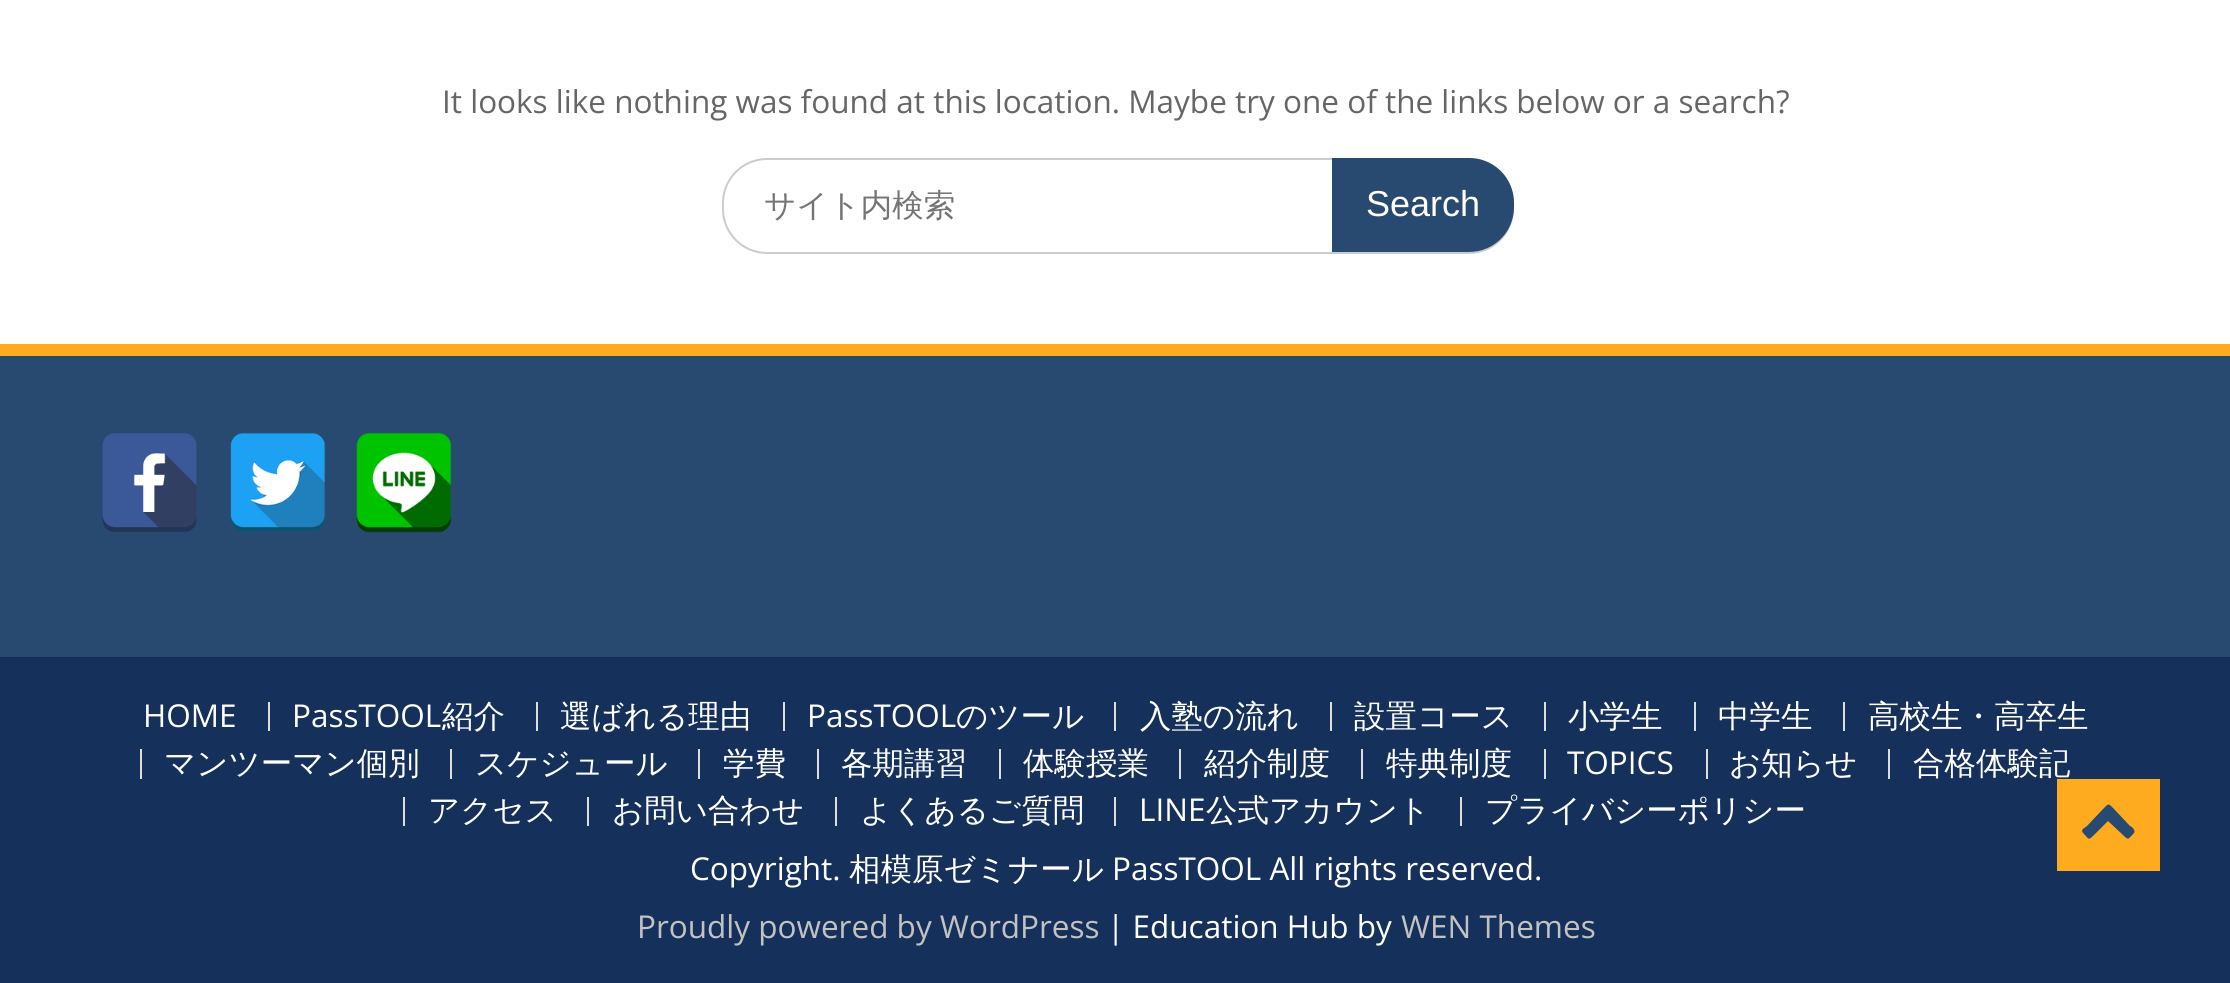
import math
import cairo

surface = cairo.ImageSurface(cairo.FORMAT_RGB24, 2230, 983)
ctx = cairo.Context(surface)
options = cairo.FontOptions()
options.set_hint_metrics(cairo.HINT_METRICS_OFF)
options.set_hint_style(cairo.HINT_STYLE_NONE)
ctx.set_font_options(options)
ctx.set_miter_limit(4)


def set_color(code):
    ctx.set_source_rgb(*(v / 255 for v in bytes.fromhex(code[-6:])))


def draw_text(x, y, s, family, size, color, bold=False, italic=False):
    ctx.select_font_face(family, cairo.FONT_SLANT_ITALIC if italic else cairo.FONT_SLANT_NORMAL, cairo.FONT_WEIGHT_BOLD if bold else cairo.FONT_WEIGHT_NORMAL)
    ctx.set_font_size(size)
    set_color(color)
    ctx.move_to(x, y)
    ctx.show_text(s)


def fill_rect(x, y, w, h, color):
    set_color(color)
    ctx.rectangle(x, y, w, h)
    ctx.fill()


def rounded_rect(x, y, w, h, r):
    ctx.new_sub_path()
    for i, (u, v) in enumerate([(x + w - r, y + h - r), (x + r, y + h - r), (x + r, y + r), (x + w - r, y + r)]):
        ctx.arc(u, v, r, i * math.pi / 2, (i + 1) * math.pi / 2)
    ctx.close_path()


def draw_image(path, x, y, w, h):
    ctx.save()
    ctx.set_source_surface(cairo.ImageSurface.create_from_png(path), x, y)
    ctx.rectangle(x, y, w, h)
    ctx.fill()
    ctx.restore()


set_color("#ffffff")
ctx.paint()
draw_text(442, 113, "It looks like nothing was found at this location. Maybe try one of the links below or a search?", "Open Sans", 31.5, "#666666")
rounded_rect(723, 159, 790, 94, 44)
set_color("#cccccc")
ctx.stroke()
draw_text(764, 216, "サイト内検索", "WenQuanYi Zen Hei Medium", 31.5, "#757575")
set_color("#294a70")
ctx.new_path()
ctx.move_to(1332, 158)
ctx.line_to(1469, 158)
ctx.curve_to(1494, 158, 1514, 178, 1514, 203)
ctx.line_to(1514, 207)
ctx.curve_to(1514, 232, 1494, 252, 1469, 252)
ctx.line_to(1332, 252)
ctx.close_path()
ctx.fill()
draw_text(1366, 216, "Search", "Liberation Sans", 36, "#ffffff")
fill_rect(0, 356, 2230, 301, "#294a70")
fill_rect(0, 344, 2230, 12, "#ffab1f")
draw_image("assets/img1.png", 102, 433, 95, 99)
draw_image("assets/img2.png", 230, 432, 96, 100)
draw_image("assets/img3.png", 356, 432, 96, 101)
fill_rect(0, 657, 2230, 326, "#15305b")
draw_text(143, 727, "HOME", "Open Sans", 31.5, "#ffffff")
fill_rect(268, 702, 2, 29, "#dddddd")
draw_text(292, 727, "PassTOOL", "Open Sans", 31.5, "#ffffff")
draw_text(442, 727, "紹介", "WenQuanYi Zen Hei Medium", 31.5, "#ffffff")
fill_rect(536, 702, 2, 29, "#dddddd")
draw_text(560, 727, "選ばれる理由", "WenQuanYi Zen Hei Medium", 31.5, "#ffffff")
fill_rect(783, 702, 2, 29, "#dddddd")
draw_text(807, 727, "PassTOOL", "Open Sans", 31.5, "#ffffff")
draw_text(956, 727, "のツール", "WenQuanYi Zen Hei Medium", 31.5, "#ffffff")
fill_rect(1114, 702, 2, 29, "#dddddd")
draw_text(1140, 727, "入塾の流れ", "WenQuanYi Zen Hei Medium", 31.5, "#ffffff")
fill_rect(1330, 702, 2, 29, "#dddddd")
draw_text(1354, 727, "設置コース", "WenQuanYi Zen Hei Medium", 31.5, "#ffffff")
fill_rect(1544, 702, 2, 29, "#dddddd")
draw_text(1568, 727, "小学生", "WenQuanYi Zen Hei Medium", 31.5, "#ffffff")
fill_rect(1694, 702, 2, 29, "#dddddd")
draw_text(1718, 727, "中学生", "WenQuanYi Zen Hei Medium", 31.5, "#ffffff")
fill_rect(1843, 702, 2, 29, "#dddddd")
draw_text(1868, 727, "高校生・高卒生", "WenQuanYi Zen Hei Medium", 31.5, "#ffffff")
fill_rect(140, 749, 2, 30, "#dddddd")
draw_text(164, 774, "マンツーマン個別", "WenQuanYi Zen Hei Medium", 31.5, "#ffffff")
fill_rect(450, 749, 2, 30, "#dddddd")
draw_text(475, 774, "スケジュール", "WenQuanYi Zen Hei Medium", 31.5, "#ffffff")
fill_rect(698, 749, 2, 30, "#dddddd")
draw_text(723, 774, "学費", "WenQuanYi Zen Hei Medium", 31.5, "#ffffff")
fill_rect(817, 749, 2, 30, "#dddddd")
draw_text(841, 774, "各期講習", "WenQuanYi Zen Hei Medium", 31.5, "#ffffff")
fill_rect(999, 749, 2, 30, "#dddddd")
draw_text(1023, 774, "体験授業", "WenQuanYi Zen Hei Medium", 31.5, "#ffffff")
fill_rect(1179, 749, 2, 30, "#dddddd")
draw_text(1204, 774, "紹介制度", "WenQuanYi Zen Hei Medium", 31.5, "#ffffff")
fill_rect(1361, 749, 2, 30, "#dddddd")
draw_text(1386, 774, "特典制度", "WenQuanYi Zen Hei Medium", 31.5, "#ffffff")
fill_rect(1544, 749, 2, 30, "#dddddd")
draw_text(1567, 774, "TOPICS", "Open Sans", 31.5, "#ffffff")
fill_rect(1706, 749, 2, 30, "#dddddd")
draw_text(1729, 774, "お知らせ", "WenQuanYi Zen Hei Medium", 31.5, "#ffffff")
fill_rect(1888, 749, 2, 30, "#dddddd")
draw_text(1913, 774, "合格体験記", "WenQuanYi Zen Hei Medium", 31.5, "#ffffff")
fill_rect(403, 797, 2, 29, "#dddddd")
draw_text(428, 821, "アクセス", "WenQuanYi Zen Hei Medium", 31.5, "#ffffff")
fill_rect(587, 797, 2, 29, "#dddddd")
draw_text(612, 821, "お問い合わせ", "WenQuanYi Zen Hei Medium", 31.5, "#ffffff")
fill_rect(835, 797, 2, 29, "#dddddd")
draw_text(860, 821, "よくあるご質問", "WenQuanYi Zen Hei Medium", 31.5, "#ffffff")
fill_rect(1114, 797, 2, 29, "#dddddd")
draw_text(1139, 821, "LINE", "Open Sans", 31.5, "#ffffff")
draw_text(1206, 821, "公式アカウント", "WenQuanYi Zen Hei Medium", 31.5, "#ffffff")
fill_rect(1460, 797, 2, 29, "#dddddd")
draw_text(1485, 821, "プライバシーポリシー", "WenQuanYi Zen Hei Medium", 31.5, "#ffffff")
draw_text(690, 880, "Copyright.", "Open Sans", 31.5, "#ffffff")
draw_text(849, 880, "相模原ゼミナール", "WenQuanYi Zen Hei Medium", 31.5, "#ffffff")
draw_text(1112, 880, "PassTOOL All rights reserved.", "Open Sans", 31.5, "#ffffff")
draw_text(637, 938, "Proudly powered by WordPress", "Open Sans", 31.5, "#c2c2c2")
draw_text(1107, 938, "| Education Hub by", "Open Sans", 31.5, "#ffffff")
draw_text(1401, 938, "WEN Themes", "Open Sans", 31.5, "#c2c2c2")
fill_rect(2057, 779, 103, 92, "#ffab1f")
set_color("#294a70")
ctx.new_path()
ctx.move_to(2134, 833)
ctx.curve_to(2128, 839, 2129, 841, 2123, 835)
ctx.line_to(2108, 821)
ctx.line_to(2094, 835)
ctx.curve_to(2088, 841, 2089, 839, 2084, 834)
ctx.curve_to(2080, 830, 2083, 829, 2087, 826)
ctx.line_to(2103, 809)
ctx.curve_to(2109, 803, 2108, 803, 2114, 809)
ctx.line_to(2130, 826)
ctx.curve_to(2131, 826, 2136, 830, 2134, 833)
ctx.close_path()
ctx.fill()
surface.write_to_png("output.png")
